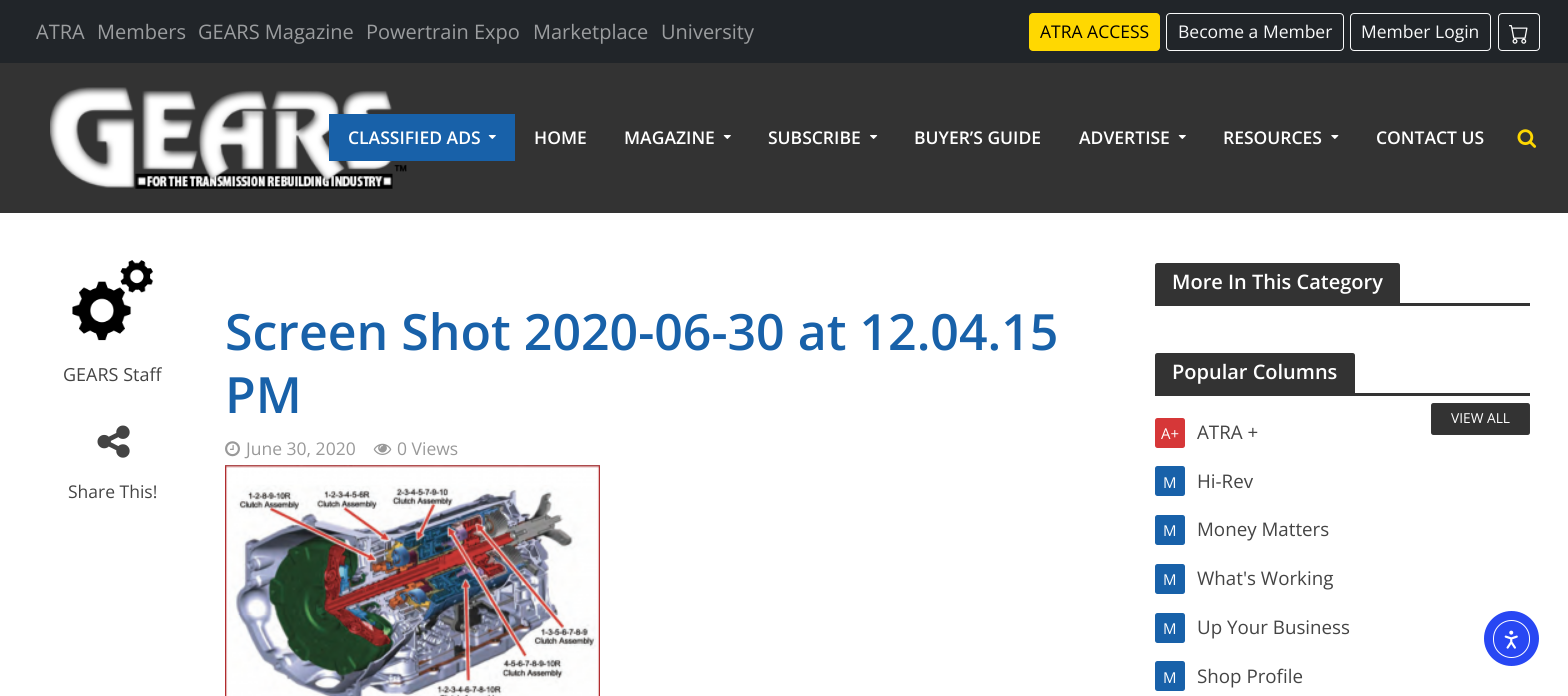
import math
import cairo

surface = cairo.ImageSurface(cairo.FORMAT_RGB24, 1568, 696)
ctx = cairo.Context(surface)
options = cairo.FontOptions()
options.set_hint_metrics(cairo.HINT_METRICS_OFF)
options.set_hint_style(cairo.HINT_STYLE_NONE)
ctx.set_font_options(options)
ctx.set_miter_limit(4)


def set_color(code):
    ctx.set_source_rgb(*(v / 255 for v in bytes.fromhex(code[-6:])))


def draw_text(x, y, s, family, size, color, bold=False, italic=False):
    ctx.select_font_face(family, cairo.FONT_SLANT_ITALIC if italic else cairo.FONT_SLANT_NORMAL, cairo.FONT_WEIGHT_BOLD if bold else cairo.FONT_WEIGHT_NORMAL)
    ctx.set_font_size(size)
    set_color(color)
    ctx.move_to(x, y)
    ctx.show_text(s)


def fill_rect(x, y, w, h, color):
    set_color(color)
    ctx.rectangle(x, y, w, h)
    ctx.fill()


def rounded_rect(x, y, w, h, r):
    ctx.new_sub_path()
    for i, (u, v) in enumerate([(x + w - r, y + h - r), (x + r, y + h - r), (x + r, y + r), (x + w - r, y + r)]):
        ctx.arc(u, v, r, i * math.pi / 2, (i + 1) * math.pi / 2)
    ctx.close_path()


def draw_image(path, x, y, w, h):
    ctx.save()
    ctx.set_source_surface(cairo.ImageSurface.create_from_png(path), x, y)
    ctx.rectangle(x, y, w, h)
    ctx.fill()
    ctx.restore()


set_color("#ffffff")
ctx.paint()
fill_rect(0, 0, 1568, 63, "#212529")
draw_text(36, 39, "ATRA", "Open Sans", 20, "#9b9d9f")
draw_text(97, 39, "Members", "Open Sans", 20, "#9b9d9f")
draw_text(198, 39, "GEARS Magazine", "Open Sans", 20, "#9b9d9f")
draw_text(366, 39, "Powertrain Expo", "Open Sans", 20, "#9b9d9f")
draw_text(533, 39, "Marketplace", "Open Sans", 20, "#9b9d9f")
draw_text(661, 39, "University", "Open Sans", 20, "#9b9d9f")
set_color("#ffd801")
rounded_rect(1029, 13, 131, 38, 4)
ctx.fill()
draw_text(1040, 38, "ATRA ACCESS", "Open Sans", 17.5, "#000000")
rounded_rect(1166.5, 13.5, 177, 37, 3.5)
set_color("#f8f9fa")
ctx.set_line_width(1)
ctx.stroke()
draw_text(1178, 38, "Become a Member", "Open Sans", 17.5, "#f8f9fa")
rounded_rect(1350.5, 13.5, 140, 37, 3.5)
ctx.stroke()
draw_text(1361, 38, "Member Login", "Open Sans", 17.5, "#f8f9fa")
rounded_rect(1498.5, 13.5, 41, 37, 3.5)
ctx.stroke()
draw_image("assets/img1.png", 1509, 25, 19, 19)
fill_rect(0, 63, 1568, 150, "#333333")
draw_image("assets/img2.png", 50, 87, 357, 102)
fill_rect(329, 114, 186, 47, "#1861a9")
draw_text(348, 144, "CLASSIFIED ADS", "Open Sans SemiBold", 17.5, "#ffffff")
draw_image("assets/img3.png", 488, 135, 8, 4)
draw_text(534, 144, "HOME", "Open Sans SemiBold", 17.5, "#ffffff")
draw_text(624, 144, "MAGAZINE", "Open Sans SemiBold", 17.5, "#ffffff")
draw_image("assets/img4.png", 723, 135, 8, 4)
draw_text(768, 144, "SUBSCRIBE", "Open Sans SemiBold", 17.5, "#ffffff")
draw_image("assets/img5.png", 870, 135, 8, 4)
draw_text(914, 144, "BUYER’S GUIDE", "Open Sans SemiBold", 17.5, "#ffffff")
draw_text(1079, 144, "ADVERTISE", "Open Sans SemiBold", 17.5, "#ffffff")
draw_image("assets/img4.png", 1178, 135, 8, 4)
draw_text(1223, 144, "RESOURCES", "Open Sans SemiBold", 17.5, "#ffffff")
draw_image("assets/img6.png", 1331, 135, 8, 4)
draw_text(1376, 144, "CONTACT US", "Open Sans SemiBold", 17.5, "#ffffff")
draw_image("assets/img7.png", 1517, 129, 20, 19)
draw_image("assets/img8.png", 72, 260, 82, 81)
draw_text(63, 381, "GEARS Staff", "Open Sans", 18, "#444444")
draw_image("assets/img9.png", 97, 425, 33, 33)
draw_text(68, 498, "Share This!", "Open Sans", 17.5, "#444444")
draw_text(225, 350, "Screen Shot 2020-06-30 at 12.04.15", "Open Sans SemiBold", 50, "#1861a9")
draw_text(225, 413, "PM", "Open Sans SemiBold", 50, "#1861a9")
draw_image("assets/img10.png", 225, 441, 15, 16)
draw_text(246, 455, "June 30, 2020", "Open Sans", 17.5, "#999999")
draw_image("assets/img11.png", 373, 443, 19, 12)
draw_text(397, 455, "0 Views", "Open Sans", 17.5, "#999999")
draw_image("assets/img12.png", 225, 465, 375, 231)
set_color("#333333")
ctx.new_path()
ctx.move_to(1157.5, 263)
ctx.line_to(1397.5, 263)
ctx.curve_to(1399, 263, 1400, 264, 1400, 265.5)
ctx.line_to(1400, 303)
ctx.line_to(1155, 303)
ctx.line_to(1155, 265.5)
ctx.curve_to(1155, 264, 1156, 263, 1157.5, 263)
ctx.close_path()
ctx.fill()
draw_text(1172, 289, "More In This Category", "Open Sans SemiBold", 20, "#ffffff")
fill_rect(1155, 303, 375, 3, "#333333")
ctx.new_path()
ctx.move_to(1157.5, 353)
ctx.line_to(1352.5, 353)
ctx.curve_to(1354, 353, 1355, 354, 1355, 355.5)
ctx.line_to(1355, 393)
ctx.line_to(1155, 393)
ctx.line_to(1155, 355.5)
ctx.curve_to(1155, 354, 1156, 353, 1157.5, 353)
ctx.close_path()
ctx.fill()
draw_text(1172, 379, "Popular Columns", "Open Sans SemiBold", 20, "#ffffff")
fill_rect(1155, 393, 375, 3, "#333333")
set_color("#d63738")
rounded_rect(1155, 418, 30, 30, 2.5)
ctx.fill()
draw_text(1161, 439, "A+", "Open Sans", 15, "#ffffff")
draw_text(1197, 439, "ATRA +", "Open Sans", 18.75, "#444444")
set_color("#1861a9")
rounded_rect(1155, 466, 30, 30, 2.5)
ctx.fill()
draw_text(1163, 488, "M", "Open Sans", 15, "#ffffff")
draw_text(1197, 488, "Hi-Rev", "Open Sans", 18.75, "#444444")
set_color("#1861a9")
rounded_rect(1155, 515, 30, 30, 2.5)
ctx.fill()
draw_text(1163, 536, "M", "Open Sans", 15, "#ffffff")
draw_text(1197, 536, "Money Matters", "Open Sans", 18.75, "#444444")
set_color("#1861a9")
rounded_rect(1155, 564, 30, 30, 2.5)
ctx.fill()
draw_text(1163, 585, "M", "Open Sans", 15, "#ffffff")
draw_text(1197, 585, "What's Working", "Open Sans", 18.75, "#444444")
set_color("#1861a9")
rounded_rect(1155, 613, 30, 30, 2.5)
ctx.fill()
draw_text(1163, 634, "M", "Open Sans", 15, "#ffffff")
draw_text(1197, 634, "Up Your Business", "Open Sans", 18.75, "#444444")
set_color("#1861a9")
rounded_rect(1155, 661, 30, 30, 2.5)
ctx.fill()
draw_text(1163, 683, "M", "Open Sans", 15, "#ffffff")
draw_text(1197, 683, "Shop Profile", "Open Sans", 18.75, "#444444")
set_color("#333333")
rounded_rect(1431, 403, 99, 32, 2.5)
ctx.fill()
rounded_rect(1431.5, 403.5, 98, 31, 2)
ctx.set_source_rgba(0.267, 0.267, 0.267, 0.2)
ctx.stroke()
draw_text(1451, 423, "VIEW ALL", "Open Sans", 13.75, "#ffffff")
set_color("#2847f3")
ctx.new_path()
ctx.arc(1511.5, 638.5, 27.5, 0, 2 * math.pi)
ctx.fill()
rounded_rect(1493.5, 620.5, 36, 37, 18)
set_color("#ffffff")
ctx.stroke()
draw_image("assets/img13.png", 1504, 630, 14, 19)
surface.write_to_png("output.png")
